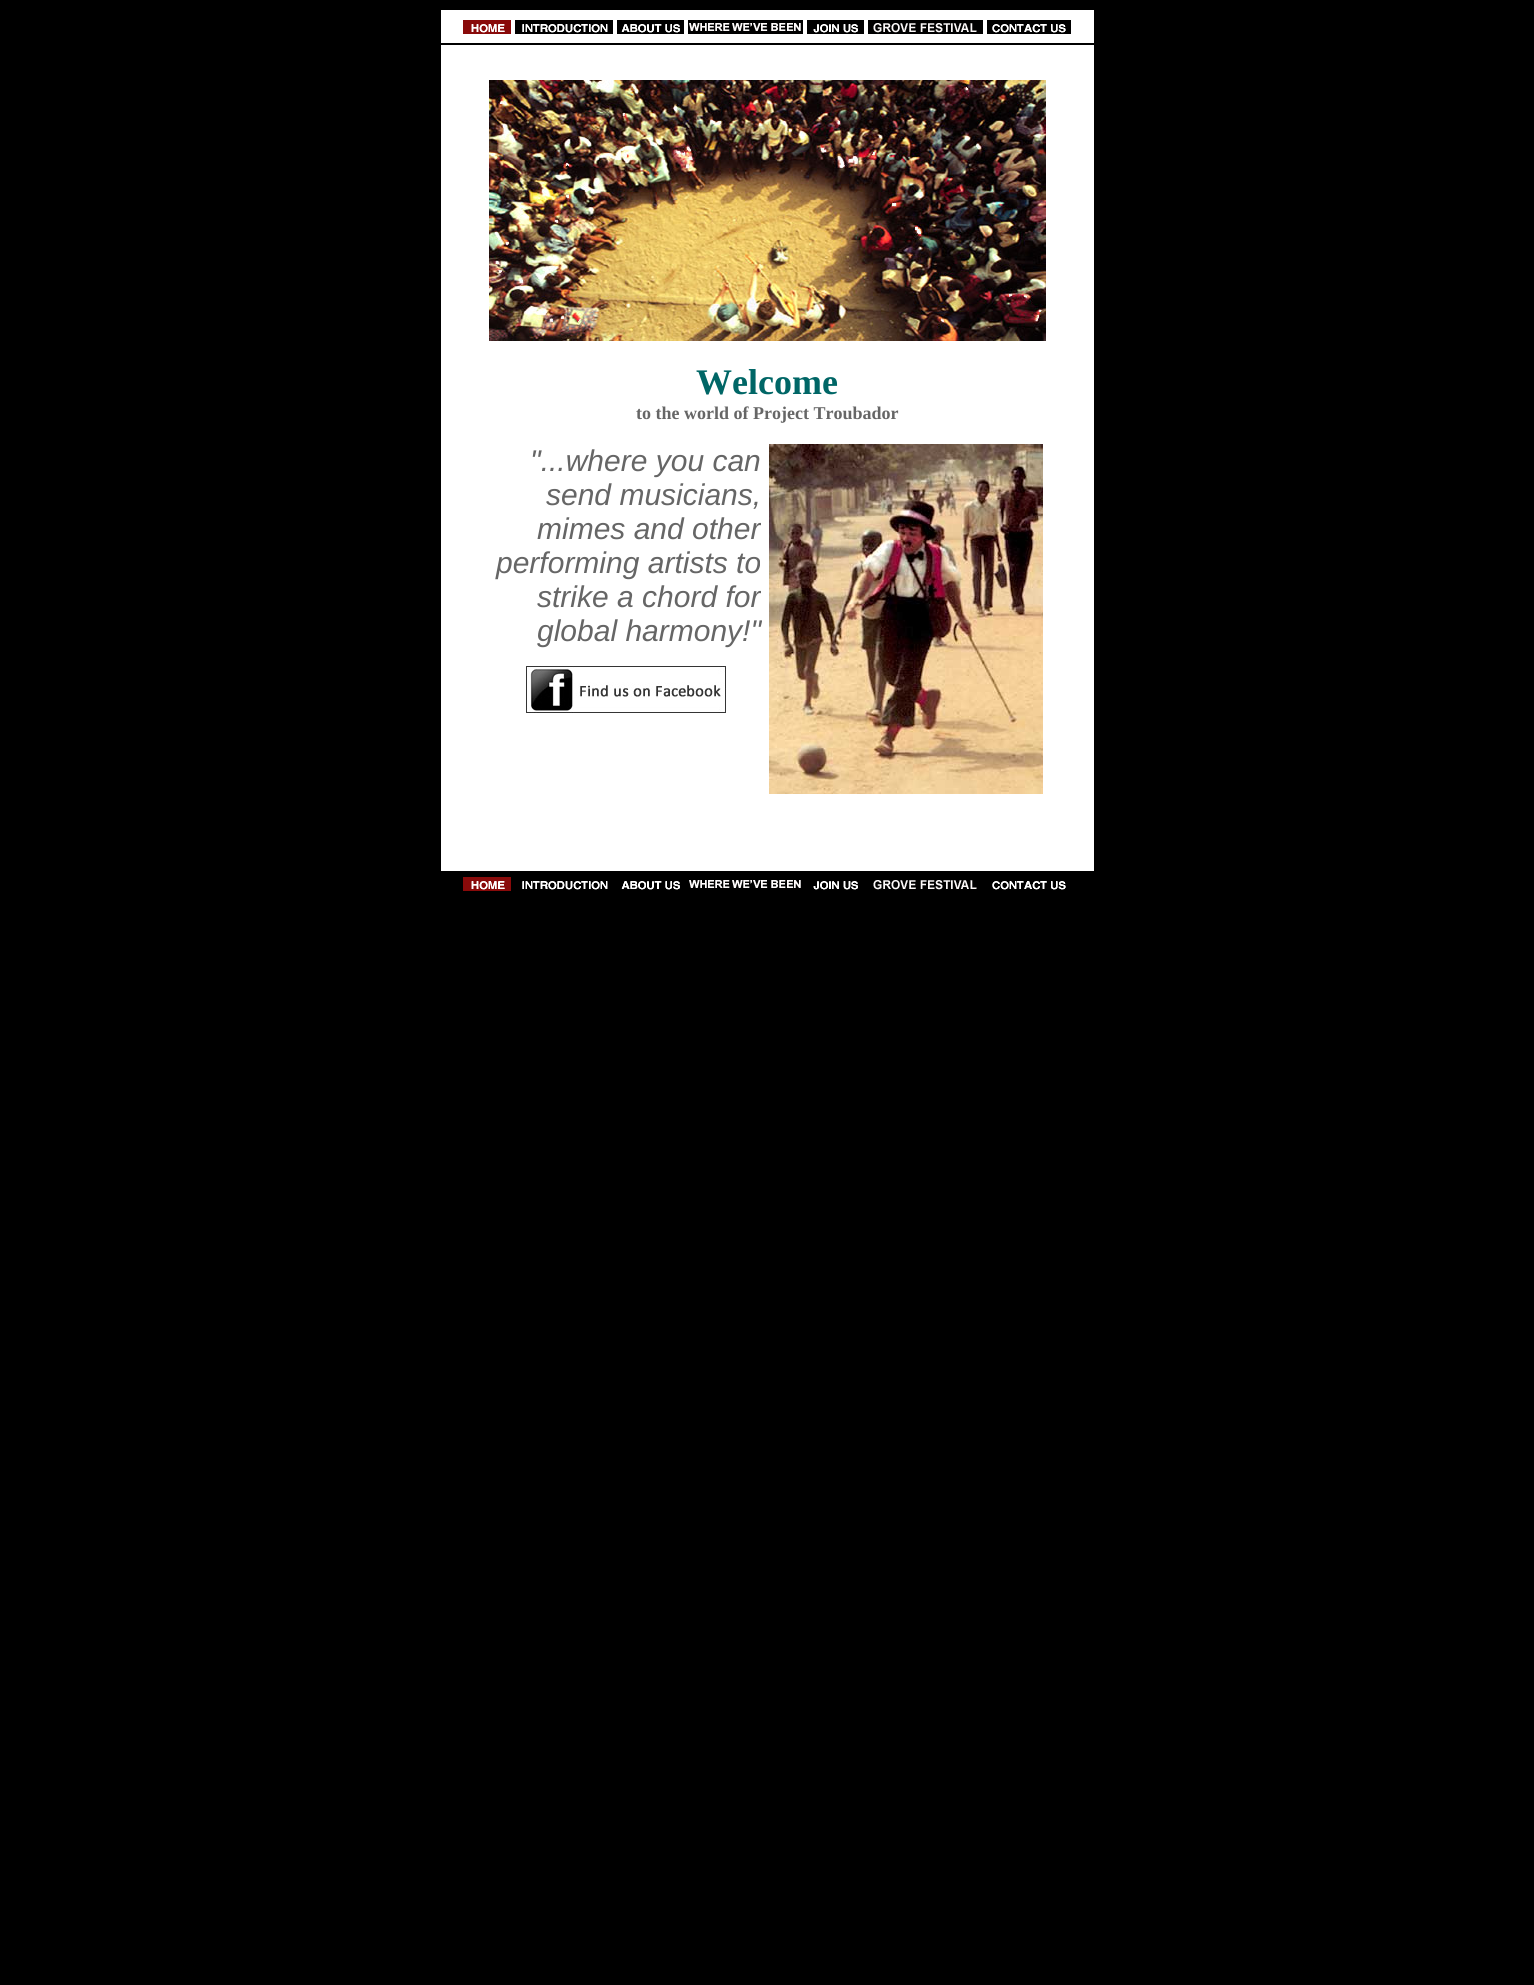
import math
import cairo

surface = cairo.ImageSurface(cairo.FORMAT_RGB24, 1534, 1985)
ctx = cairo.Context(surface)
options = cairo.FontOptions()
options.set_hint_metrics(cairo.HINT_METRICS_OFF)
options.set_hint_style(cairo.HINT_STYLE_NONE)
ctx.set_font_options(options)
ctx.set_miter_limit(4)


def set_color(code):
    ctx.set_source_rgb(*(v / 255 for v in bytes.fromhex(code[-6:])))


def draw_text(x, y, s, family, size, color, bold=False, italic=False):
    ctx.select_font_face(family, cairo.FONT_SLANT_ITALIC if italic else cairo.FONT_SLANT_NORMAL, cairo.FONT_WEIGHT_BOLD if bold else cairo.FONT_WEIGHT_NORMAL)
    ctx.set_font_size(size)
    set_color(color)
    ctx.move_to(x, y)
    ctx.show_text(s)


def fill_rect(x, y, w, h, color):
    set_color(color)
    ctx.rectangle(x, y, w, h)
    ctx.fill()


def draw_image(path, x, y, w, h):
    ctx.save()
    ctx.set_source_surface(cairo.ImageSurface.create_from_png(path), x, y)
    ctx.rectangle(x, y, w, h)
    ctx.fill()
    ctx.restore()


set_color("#000000")
ctx.paint()
fill_rect(441, 10, 653, 33, "#ffffff")
draw_image("assets/img1.png", 463, 20, 48, 14)
draw_image("assets/img2.png", 515, 20, 98, 14)
draw_image("assets/img3.png", 617, 20, 67, 14)
draw_image("assets/img4.png", 688, 20, 115, 14)
draw_image("assets/img5.png", 807, 20, 57, 14)
draw_image("assets/img6.png", 868, 20, 115, 14)
draw_image("assets/img7.png", 987, 20, 84, 14)
fill_rect(441, 45, 653, 826, "#ffffff")
draw_image("assets/img8.png", 489, 80, 557, 261)
draw_text(696, 394, "Welcome", "Liberation Serif", 36, "#006666", bold=True)
draw_text(636, 419, "to the world of Project Troubador", "Liberation Serif", 18, "#666666", bold=True)
draw_text(530, 471, "\"...where you can", "Liberation Sans", 30, "#666666", italic=True)
draw_text(546, 505, "send musicians,", "Liberation Sans", 30, "#666666", italic=True)
draw_text(537, 539, "mimes and other", "Liberation Sans", 30, "#666666", italic=True)
draw_text(496, 573, "performing artists to", "Liberation Sans", 30, "#666666", italic=True)
draw_text(537, 607, "strike a chord for", "Liberation Sans", 30, "#666666", italic=True)
draw_text(537, 641, "global harmony!\"", "Liberation Sans", 30, "#666666", italic=True)
draw_image("assets/img9.png", 526, 666, 200, 47)
draw_image("assets/img10.png", 769, 444, 274, 350)
draw_image("assets/img1.png", 463, 877, 48, 14)
draw_image("assets/img11.png", 522, 881, 86, 9)
draw_image("assets/img12.png", 621, 881, 59, 9)
draw_image("assets/img13.png", 689, 880, 112, 8)
draw_image("assets/img14.png", 813, 881, 45, 9)
draw_image("assets/img15.png", 873, 880, 104, 10)
draw_image("assets/img16.png", 992, 881, 74, 9)
surface.write_to_png("output.png")
